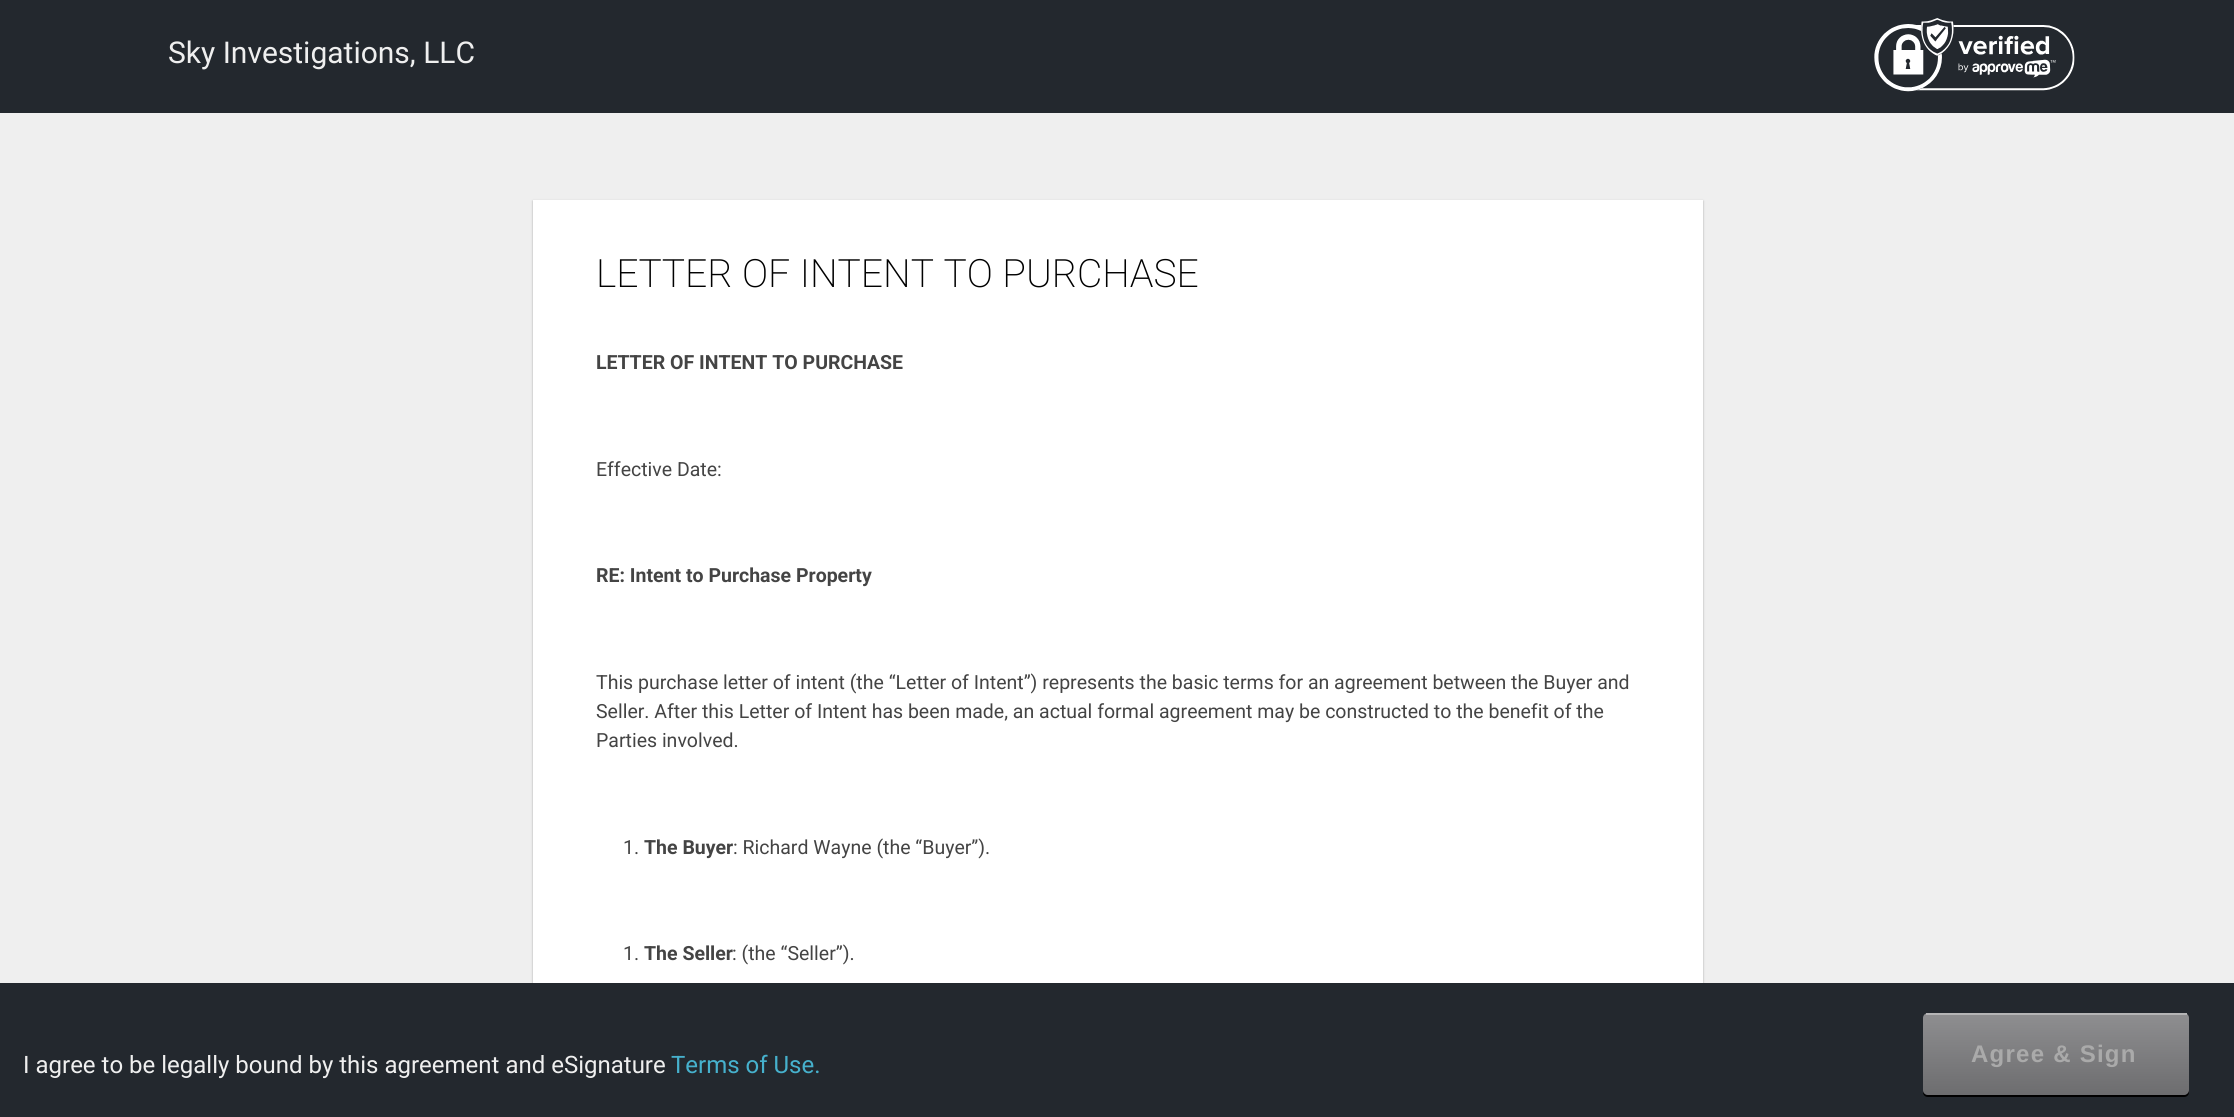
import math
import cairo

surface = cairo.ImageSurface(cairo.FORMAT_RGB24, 2234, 1117)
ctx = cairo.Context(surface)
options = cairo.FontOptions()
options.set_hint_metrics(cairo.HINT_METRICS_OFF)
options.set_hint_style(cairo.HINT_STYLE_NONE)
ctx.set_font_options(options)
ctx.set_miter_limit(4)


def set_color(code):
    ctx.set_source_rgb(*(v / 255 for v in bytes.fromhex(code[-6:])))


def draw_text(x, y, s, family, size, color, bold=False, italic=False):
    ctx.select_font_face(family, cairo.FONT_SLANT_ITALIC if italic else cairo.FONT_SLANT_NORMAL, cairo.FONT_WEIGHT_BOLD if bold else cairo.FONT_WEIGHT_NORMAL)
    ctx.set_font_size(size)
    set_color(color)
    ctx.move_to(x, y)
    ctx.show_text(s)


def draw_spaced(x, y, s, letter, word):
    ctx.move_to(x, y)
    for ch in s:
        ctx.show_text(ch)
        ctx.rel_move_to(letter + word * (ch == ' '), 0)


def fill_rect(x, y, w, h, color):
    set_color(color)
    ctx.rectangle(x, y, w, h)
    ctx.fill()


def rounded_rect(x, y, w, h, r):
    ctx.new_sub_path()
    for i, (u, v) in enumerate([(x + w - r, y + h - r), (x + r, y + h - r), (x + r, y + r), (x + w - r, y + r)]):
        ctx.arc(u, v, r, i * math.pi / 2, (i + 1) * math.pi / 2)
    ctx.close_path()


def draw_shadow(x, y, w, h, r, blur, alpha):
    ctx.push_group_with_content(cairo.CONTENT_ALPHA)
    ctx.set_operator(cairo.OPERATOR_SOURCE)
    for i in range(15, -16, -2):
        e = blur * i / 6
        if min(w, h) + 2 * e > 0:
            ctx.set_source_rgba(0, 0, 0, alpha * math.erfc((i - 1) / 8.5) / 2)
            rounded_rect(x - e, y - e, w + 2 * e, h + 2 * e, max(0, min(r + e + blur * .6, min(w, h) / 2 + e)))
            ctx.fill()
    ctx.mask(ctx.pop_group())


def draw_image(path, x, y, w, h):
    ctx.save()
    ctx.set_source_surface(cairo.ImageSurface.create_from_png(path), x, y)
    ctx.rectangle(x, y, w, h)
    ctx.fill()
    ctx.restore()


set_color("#efefef")
ctx.paint()
fill_rect(0, 0, 2234, 113, "#23282e")
draw_text(168, 63, "Sky Investigations, LLC", "Roboto", 30, "#efefef")
draw_image("assets/img1.png", 1874, 18, 201, 74)
set_color("#aaaaaa")
draw_shadow(533, 201, 1170, 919, 0, 1, 1)
fill_rect(533, 200, 1170, 783, "#ffffff")
draw_text(596, 287, "LETTER OF INTENT TO PURCHASE", "Roboto ExtraLight", 39, "#000000")
draw_text(596, 369, "LETTER OF INTENT TO PURCHASE", "Roboto", 19.5, "#444444", bold=True)
draw_text(596, 476, "Effective Date:", "Roboto", 19.5, "#444444")
draw_text(596, 582, "RE: Intent to Purchase Property", "Roboto", 19.5, "#444444", bold=True)
draw_text(596, 689, "This purchase letter of intent (the “Letter of Intent”) represents the basic terms for an agreement between the Buyer and", "Roboto", 19.5, "#444444")
draw_text(596, 718, "Seller. After this Letter of Intent has been made, an actual formal agreement may be constructed to the benefit of the", "Roboto", 19.5, "#444444")
draw_text(596, 747, "Parties involved.", "Roboto", 19.5, "#444444")
draw_text(623, 854, "1.", "Roboto", 19.5, "#444444")
draw_text(644, 854, "The Buyer", "Roboto", 19.5, "#444444", bold=True)
draw_text(733, 854, ": Richard Wayne (the “Buyer”).", "Roboto", 19.5, "#444444")
draw_text(623, 960, "1.", "Roboto", 19.5, "#444444")
draw_text(644, 960, "The Seller", "Roboto", 19.5, "#444444", bold=True)
draw_text(732, 960, ": (the “Seller”).", "Roboto", 19.5, "#444444")
fill_rect(0, 983, 2234, 134, "#23282e")
draw_text(23, 1073, "I agree to be legally bound by this agreement and eSignature", "Roboto", 24, "#efefef")
draw_text(671, 1073, "Terms of Use.", "Roboto", 24, "#46b1cd")
set_color("#000000")
ctx.new_path()
ctx.move_to(1923, 1090)
ctx.line_to(1923, 1092)
ctx.curve_to(1923, 1095, 1925, 1097, 1928, 1097)
ctx.line_to(2184, 1097)
ctx.curve_to(2187, 1097, 2189, 1095, 2189, 1092)
ctx.line_to(2189, 1019)
ctx.line_to(2188, 1017)
ctx.line_to(2188, 1090)
ctx.curve_to(2188, 1093, 2186, 1095, 2184, 1095)
ctx.line_to(1928, 1095)
ctx.curve_to(1925, 1095, 1923, 1093, 1923, 1090)
ctx.close_path()
ctx.fill()
ctx.save()
rounded_rect(1923, 1013, 266, 82, 5)
ctx.clip()
gradient = cairo.LinearGradient(2056, 933, 2056, 1014)
gradient.add_color_stop_rgba(0, 0.557, 0.557, 0.565, 1)
gradient.add_color_stop_rgba(1, 0.427, 0.427, 0.435, 1)
ctx.set_source(gradient)
ctx.rectangle(1923, 1013, 3, 1)
ctx.fill()
gradient = cairo.LinearGradient(2056, 1014, 2056, 1095)
gradient.add_color_stop_rgba(0, 0.557, 0.557, 0.565, 1)
gradient.add_color_stop_rgba(1, 0.427, 0.427, 0.435, 1)
ctx.set_source(gradient)
ctx.new_path()
ctx.move_to(1923, 1014)
ctx.line_to(2189, 1014)
ctx.line_to(2189, 1090)
ctx.curve_to(2189, 1093, 2187, 1095, 2184, 1095)
ctx.line_to(1928, 1095)
ctx.curve_to(1925, 1095, 1923, 1093, 1923, 1090)
ctx.close_path()
ctx.fill()
ctx.restore()
fill_rect(1926, 1013, 261, 2, "#b5b5b6")
ctx.select_font_face("Liberation Sans", cairo.FONT_SLANT_NORMAL, cairo.FONT_WEIGHT_BOLD)
set_color("#aaaaaa")
draw_spaced(1971, 1062, "Agree & Sign", 1.25, 0)
surface.write_to_png("output.png")
